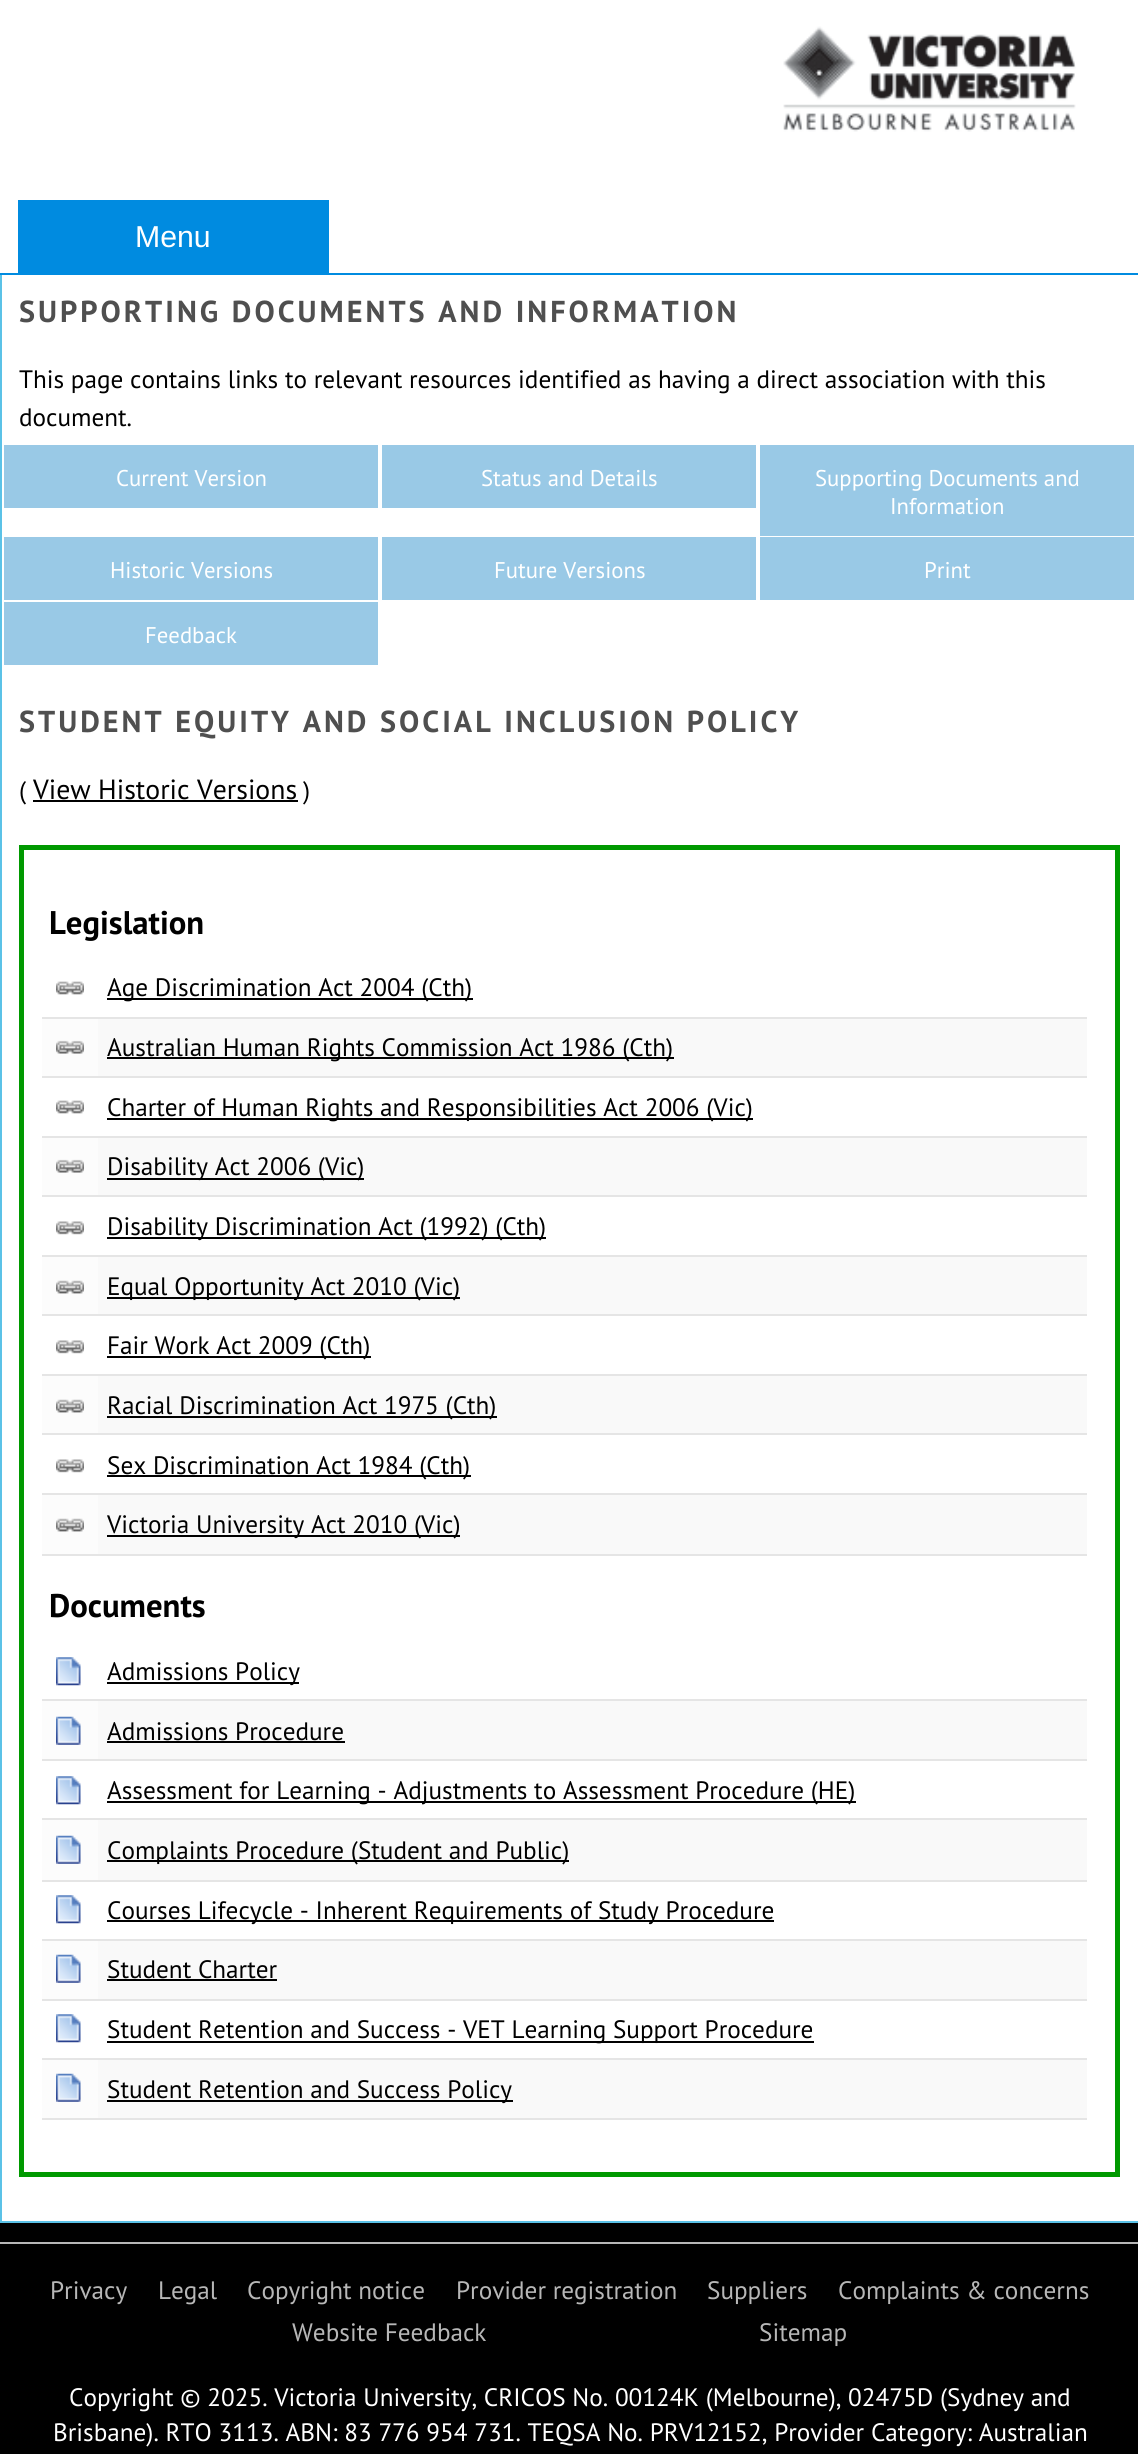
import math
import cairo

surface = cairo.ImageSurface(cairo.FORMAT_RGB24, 1138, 2454)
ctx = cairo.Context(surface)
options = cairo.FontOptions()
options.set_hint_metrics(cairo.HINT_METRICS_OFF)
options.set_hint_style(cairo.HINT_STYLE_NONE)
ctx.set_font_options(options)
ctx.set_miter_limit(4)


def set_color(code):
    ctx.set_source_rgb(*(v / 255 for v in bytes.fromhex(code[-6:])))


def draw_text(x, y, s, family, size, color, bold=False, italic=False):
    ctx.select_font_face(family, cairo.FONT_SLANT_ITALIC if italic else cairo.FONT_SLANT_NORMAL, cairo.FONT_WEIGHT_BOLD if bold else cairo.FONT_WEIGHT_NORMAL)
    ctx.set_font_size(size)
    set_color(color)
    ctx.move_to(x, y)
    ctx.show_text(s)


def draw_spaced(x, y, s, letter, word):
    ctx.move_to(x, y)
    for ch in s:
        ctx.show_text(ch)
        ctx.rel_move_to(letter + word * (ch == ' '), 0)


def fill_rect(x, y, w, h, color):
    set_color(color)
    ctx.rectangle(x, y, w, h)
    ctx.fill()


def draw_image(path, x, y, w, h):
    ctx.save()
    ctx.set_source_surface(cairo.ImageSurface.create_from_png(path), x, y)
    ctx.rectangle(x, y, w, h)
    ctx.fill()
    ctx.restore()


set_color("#ffffff")
ctx.paint()
draw_image("assets/img1.png", 783, 26, 293, 106)
fill_rect(0, 273, 1138, 2, "#008be0")
fill_rect(18, 200, 311, 73, "#008be0")
draw_text(135, 247, "Menu", "Liberation Sans", 30.25, "#ffffff")
fill_rect(0, 2221, 1138, 2, "#5bc2e7")
fill_rect(0, 275, 2, 1948, "#5bc2e7")
ctx.select_font_face("PT Sans", cairo.FONT_SLANT_NORMAL, cairo.FONT_WEIGHT_BOLD)
set_color("#4f4f4f")
draw_spaced(19, 322, "SUPPORTING DOCUMENTS AND INFORMATION", 3, 0)
draw_text(19, 388, "This page contains links to relevant resources identified as having a direct association with this", "PT Sans", 25.2, "#000000")
draw_text(19, 426, "document.", "PT Sans", 25.2, "#000000")
fill_rect(4, 445, 374, 63, "#99c9e6")
draw_text(116, 486, "Current Version", "PT Sans", 22.75, "#ffffff")
fill_rect(382, 445, 374, 63, "#99c9e6")
draw_text(481, 486, "Status and Details", "PT Sans", 22.75, "#ffffff")
fill_rect(760, 445, 374, 91, "#99c9e6")
draw_text(815, 486, "Supporting Documents and", "PT Sans", 22.75, "#ffffff")
draw_text(890, 514, "Information", "PT Sans", 22.75, "#ffffff")
fill_rect(4, 537, 374, 63, "#99c9e6")
draw_text(110, 578, "Historic Versions", "PT Sans", 22.75, "#ffffff")
fill_rect(382, 537, 374, 63, "#99c9e6")
draw_text(494, 578, "Future Versions", "PT Sans", 22.75, "#ffffff")
fill_rect(760, 537, 374, 63, "#99c9e6")
draw_text(924, 578, "Print", "PT Sans", 22.75, "#ffffff")
fill_rect(4, 602, 374, 63, "#99c9e6")
draw_text(145, 643, "Feedback", "PT Sans", 22.75, "#ffffff")
ctx.select_font_face("PT Sans", cairo.FONT_SLANT_NORMAL, cairo.FONT_WEIGHT_BOLD)
ctx.set_font_size(30.25)
set_color("#4f4f4f")
draw_spaced(19, 732, "STUDENT EQUITY AND SOCIAL INCLUSION POLICY", 3, 0)
draw_text(19, 799, "(", "PT Sans", 25.2, "#000000")
draw_text(33, 799, "View Historic Versions", "PT Sans", 27.75, "#000000")
fill_rect(33, 800, 265, 2, "#000000")
draw_text(303, 799, ")", "PT Sans", 25.2, "#000000")
ctx.rectangle(21.5, 847.5, 1096, 1327)
set_color("#009900")
ctx.set_line_width(5)
ctx.stroke()
draw_text(49, 934, "Legislation", "PT Sans", 32.75, "#000000", bold=True)
draw_image("assets/img2.png", 56, 981, 28, 14)
fill_rect(42, 1017, 1045, 2, "#e5e5e5")
fill_rect(107, 998, 366, 2, "#000000")
draw_text(107, 996, "Age Discrimination Act 2004 (Cth)", "PT Sans", 25.2, "#000000")
fill_rect(42, 1019, 56, 57, "#fcfcfc")
draw_image("assets/img3.png", 56, 1040, 28, 14)
fill_rect(98, 1019, 989, 57, "#f9f9f9")
fill_rect(42, 1076, 1045, 2, "#e5e5e5")
fill_rect(107, 1057, 567, 2, "#000000")
draw_text(107, 1056, "Australian Human Rights Commission Act 1986 (Cth)", "PT Sans", 25.2, "#000000")
draw_image("assets/img2.png", 56, 1100, 28, 14)
fill_rect(42, 1136, 1045, 2, "#e5e5e5")
fill_rect(107, 1118, 646, 2, "#000000")
draw_text(107, 1116, "Charter of Human Rights and Responsibilities Act 2006 (Vic)", "PT Sans", 25.2, "#000000")
fill_rect(42, 1138, 56, 57, "#fcfcfc")
draw_image("assets/img3.png", 56, 1159, 28, 14)
fill_rect(98, 1138, 989, 57, "#f9f9f9")
fill_rect(42, 1195, 1045, 2, "#e5e5e5")
fill_rect(107, 1178, 257, 2, "#000000")
draw_text(107, 1175, "Disability Act 2006 (Vic)", "PT Sans", 25.2, "#000000")
draw_image("assets/img4.png", 56, 1221, 28, 14)
fill_rect(42, 1255, 1045, 2, "#e5e5e5")
fill_rect(107, 1237, 439, 2, "#000000")
draw_text(107, 1235, "Disability Discrimination Act (1992) (Cth)", "PT Sans", 25.2, "#000000")
fill_rect(42, 1257, 56, 57, "#fcfcfc")
draw_image("assets/img5.png", 56, 1280, 28, 14)
fill_rect(98, 1257, 989, 57, "#f9f9f9")
fill_rect(42, 1314, 1045, 2, "#e5e5e5")
fill_rect(107, 1297, 353, 2, "#000000")
draw_text(107, 1295, "Equal Opportunity Act 2010 (Vic)", "PT Sans", 25.2, "#000000")
draw_image("assets/img4.png", 56, 1340, 28, 14)
fill_rect(42, 1374, 1045, 2, "#e5e5e5")
fill_rect(107, 1356, 264, 2, "#000000")
draw_text(107, 1354, "Fair Work Act 2009 (Cth)", "PT Sans", 25.2, "#000000")
fill_rect(42, 1376, 56, 57, "#fcfcfc")
draw_image("assets/img5.png", 56, 1399, 28, 14)
fill_rect(98, 1376, 989, 57, "#f9f9f9")
fill_rect(42, 1433, 1045, 2, "#e5e5e5")
fill_rect(107, 1416, 390, 2, "#000000")
draw_text(107, 1414, "Racial Discrimination Act 1975 (Cth)", "PT Sans", 25.2, "#000000")
draw_image("assets/img4.png", 56, 1459, 28, 14)
fill_rect(42, 1493, 1045, 2, "#e5e5e5")
fill_rect(107, 1475, 364, 2, "#000000")
draw_text(107, 1474, "Sex Discrimination Act 1984 (Cth)", "PT Sans", 25.2, "#000000")
fill_rect(42, 1495, 56, 59, "#fcfcfc")
draw_image("assets/img5.png", 56, 1518, 28, 14)
fill_rect(98, 1495, 989, 59, "#f9f9f9")
fill_rect(42, 1554, 1045, 2, "#e5e5e5")
fill_rect(107, 1535, 353, 2, "#000000")
draw_text(107, 1533, "Victoria University Act 2010 (Vic)", "PT Sans", 25.2, "#000000")
draw_text(49, 1617, "Documents", "PT Sans", 32.75, "#000000", bold=True)
draw_image("assets/img6.png", 56, 1657, 25, 29)
fill_rect(42, 1699, 1045, 2, "#e5e5e5")
fill_rect(107, 1682, 192, 2, "#000000")
draw_text(107, 1680, "Admissions Policy", "PT Sans", 25.2, "#000000")
fill_rect(42, 1701, 56, 58, "#fcfcfc")
draw_image("assets/img7.png", 56, 1716, 25, 29)
fill_rect(98, 1701, 989, 58, "#f9f9f9")
fill_rect(42, 1759, 1045, 2, "#e5e5e5")
draw_text(107, 1740, "Admissions Procedure", "PT Sans", 25.2, "#000000")
fill_rect(107, 1741, 238, 2, "#000000")
draw_image("assets/img6.png", 56, 1776, 25, 29)
fill_rect(42, 1818, 1045, 2, "#e5e5e5")
fill_rect(107, 1801, 749, 2, "#000000")
draw_text(107, 1799, "Assessment for Learning - Adjustments to Assessment Procedure (HE)", "PT Sans", 25.2, "#000000")
fill_rect(42, 1820, 56, 60, "#fcfcfc")
draw_image("assets/img7.png", 56, 1835, 25, 29)
fill_rect(98, 1820, 989, 60, "#f9f9f9")
fill_rect(42, 1880, 1045, 2, "#e5e5e5")
fill_rect(107, 1860, 462, 2, "#000000")
draw_text(107, 1859, "Complaints Procedure (Student and Public)", "PT Sans", 25.2, "#000000")
draw_image("assets/img6.png", 56, 1895, 25, 29)
fill_rect(42, 1939, 1045, 2, "#e5e5e5")
fill_rect(107, 1920, 667, 2, "#000000")
draw_text(107, 1919, "Courses Lifecycle - Inherent Requirements of Study Procedure", "PT Sans", 25.2, "#000000")
fill_rect(42, 1941, 56, 58, "#fcfcfc")
draw_image("assets/img7.png", 56, 1954, 25, 29)
fill_rect(98, 1941, 989, 58, "#f9f9f9")
fill_rect(42, 1999, 1045, 2, "#e5e5e5")
draw_text(107, 1978, "Student Charter", "PT Sans", 25.2, "#000000")
fill_rect(107, 1979, 170, 2, "#000000")
draw_image("assets/img6.png", 56, 2014, 25, 29)
fill_rect(42, 2058, 1045, 2, "#e5e5e5")
fill_rect(107, 2041, 707, 2, "#000000")
draw_text(107, 2038, "Student Retention and Success - VET Learning Support Procedure", "PT Sans", 25.2, "#000000")
fill_rect(42, 2060, 56, 58, "#fcfcfc")
draw_image("assets/img7.png", 56, 2073, 25, 29)
fill_rect(98, 2060, 989, 58, "#f9f9f9")
fill_rect(42, 2118, 1045, 2, "#e5e5e5")
fill_rect(107, 2100, 406, 2, "#000000")
draw_text(107, 2098, "Student Retention and Success Policy", "PT Sans", 25.2, "#000000")
fill_rect(0, 2223, 1138, 231, "#000000")
fill_rect(0, 2242, 1138, 2, "#b7b7b7")
draw_text(50, 2299, "Privacy", "PT Sans", 25.2, "#b7b7b7")
draw_text(158, 2299, "Legal", "PT Sans", 25.2, "#b7b7b7")
draw_text(247, 2299, "Copyright notice", "PT Sans", 25.2, "#b7b7b7")
draw_text(456, 2299, "Provider registration", "PT Sans", 25.2, "#b7b7b7")
draw_text(707, 2299, "Suppliers", "PT Sans", 25.2, "#b7b7b7")
draw_text(838, 2299, "Complaints & concerns", "PT Sans", 25.2, "#b7b7b7")
draw_text(292, 2341, "Website Feedback", "PT Sans", 25.2, "#b7b7b7")
draw_text(759, 2341, "Sitemap", "PT Sans", 25.2, "#b7b7b7")
draw_text(69, 2406, "Copyright © 2025. Victoria University, CRICOS No. 00124K (Melbourne), 02475D (Sydney and", "PT Sans", 25.2, "#ffffff")
draw_text(53, 2441, "Brisbane). RTO 3113. ABN: 83 776 954 731. TEQSA No. PRV12152, Provider Category: Australian", "PT Sans", 25.2, "#ffffff")
surface.write_to_png("output.png")
